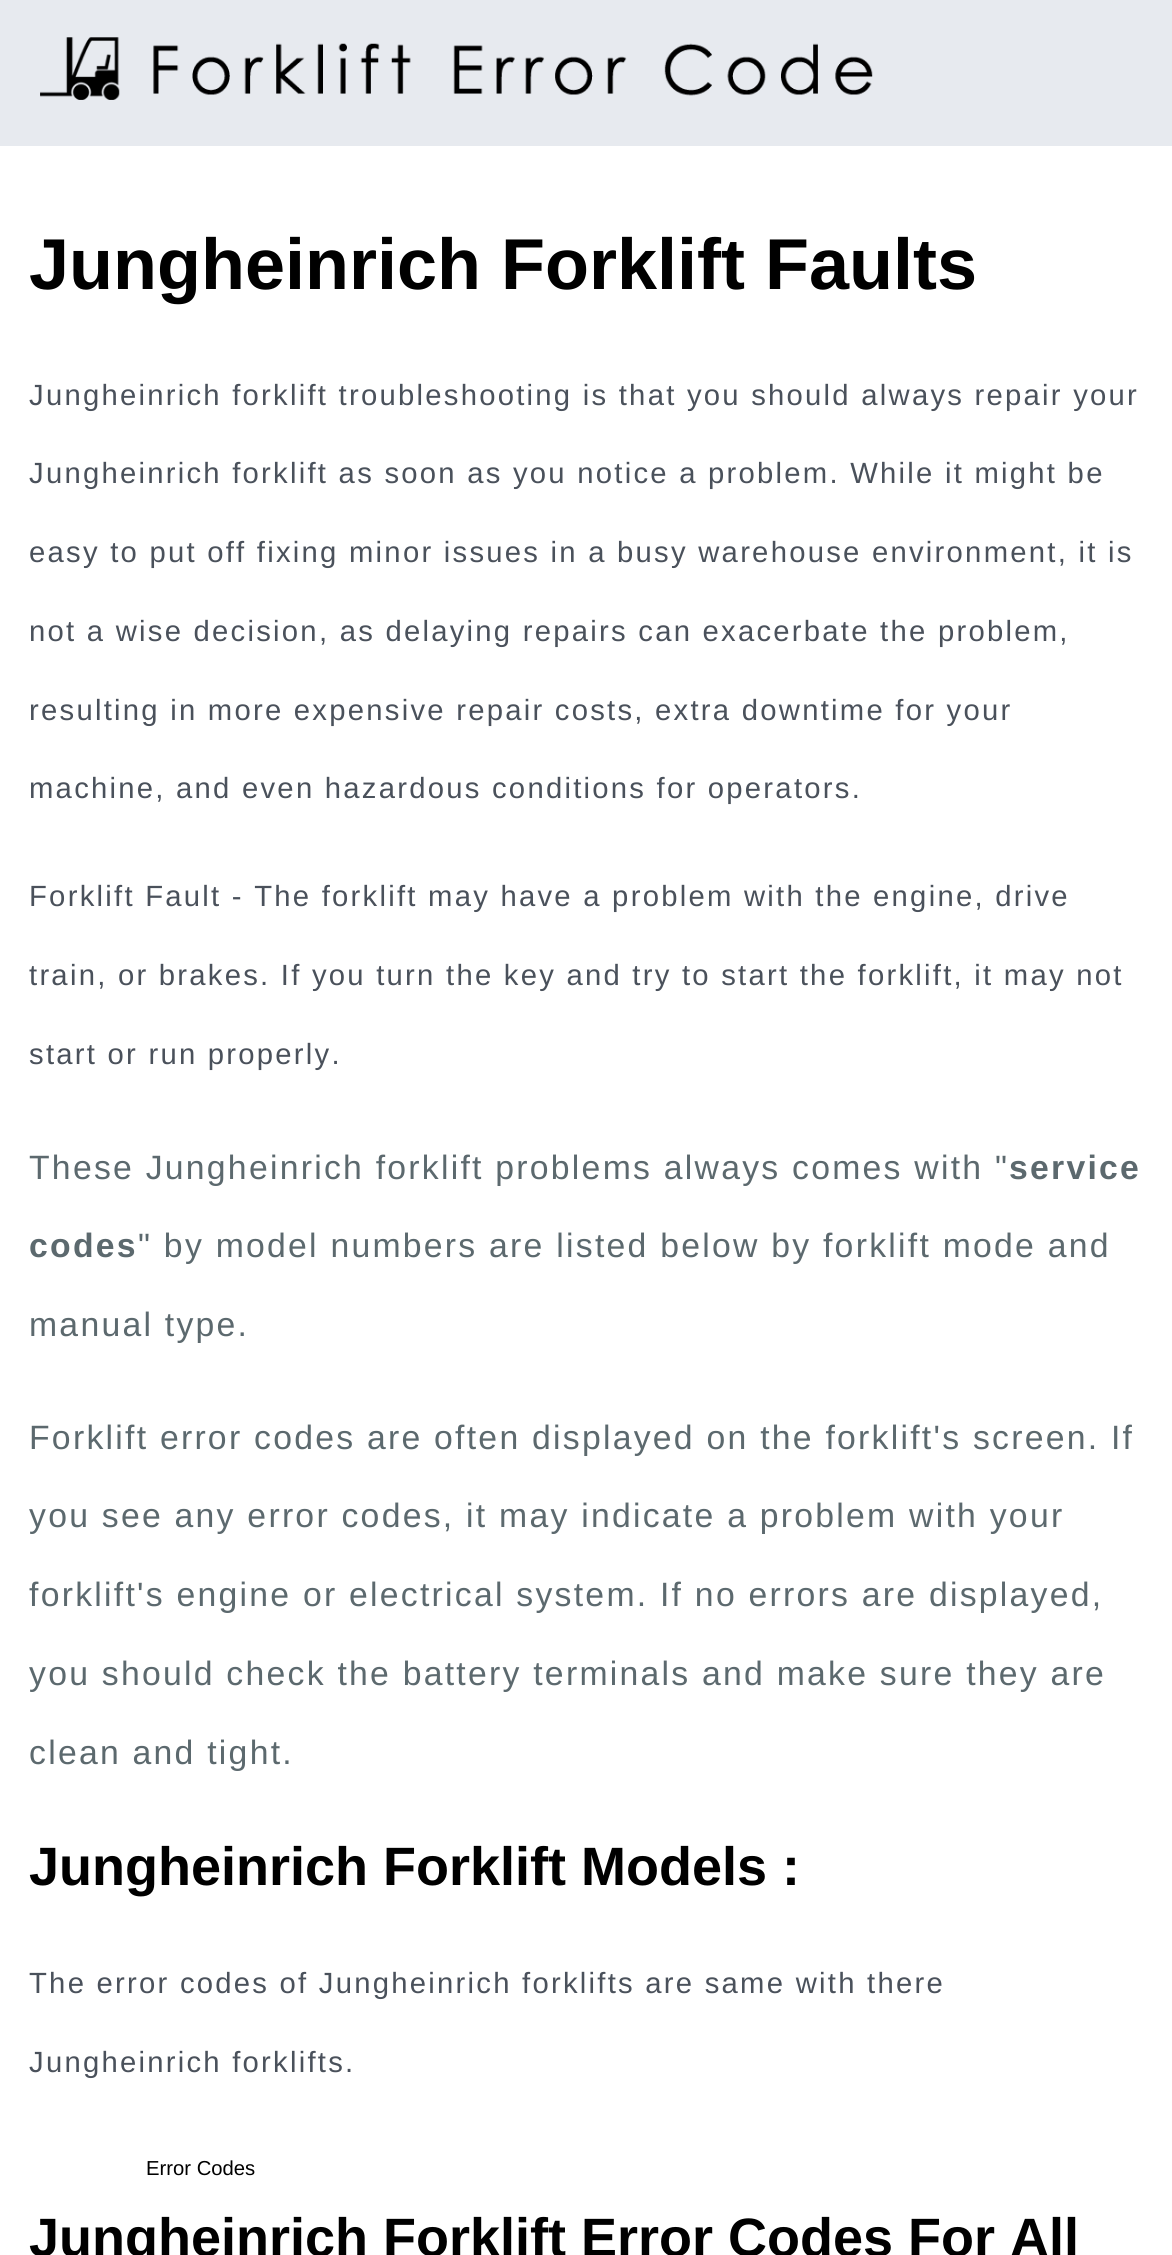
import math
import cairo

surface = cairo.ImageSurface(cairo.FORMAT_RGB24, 1172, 2255)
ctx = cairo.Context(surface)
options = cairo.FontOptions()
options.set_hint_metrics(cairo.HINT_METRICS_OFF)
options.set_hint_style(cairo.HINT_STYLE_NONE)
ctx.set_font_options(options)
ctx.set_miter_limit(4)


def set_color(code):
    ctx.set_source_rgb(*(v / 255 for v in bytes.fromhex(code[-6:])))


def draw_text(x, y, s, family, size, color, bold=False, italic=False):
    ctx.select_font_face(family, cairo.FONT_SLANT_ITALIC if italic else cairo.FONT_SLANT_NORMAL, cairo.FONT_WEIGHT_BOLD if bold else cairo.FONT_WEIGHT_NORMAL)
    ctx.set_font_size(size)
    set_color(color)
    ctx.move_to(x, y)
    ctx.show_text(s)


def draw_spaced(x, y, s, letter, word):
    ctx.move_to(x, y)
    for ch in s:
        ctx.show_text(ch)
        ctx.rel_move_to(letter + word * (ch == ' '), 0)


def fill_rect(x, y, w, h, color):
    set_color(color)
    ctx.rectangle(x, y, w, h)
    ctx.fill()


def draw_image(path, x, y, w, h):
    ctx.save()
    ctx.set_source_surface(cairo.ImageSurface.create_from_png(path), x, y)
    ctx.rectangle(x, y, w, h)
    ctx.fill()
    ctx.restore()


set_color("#ffffff")
ctx.paint()
fill_rect(0, 0, 1172, 146, "#e7eaef")
draw_image("assets/img1.png", 40, 37, 833, 63)
draw_text(29, 289, "Jungheinrich Forklift Faults", "Liberation Sans", 72, "#000000", bold=True)
ctx.select_font_face("Liberation Sans")
ctx.set_font_size(29.25)
set_color("#4a515b")
draw_spaced(29, 405, "Jungheinrich forklift troubleshooting is that you should always repair your", 2.25, 0)
draw_spaced(29, 483, "Jungheinrich forklift as soon as you notice a problem. While it might be", 2.25, 0)
draw_spaced(29, 562, "easy to put off fixing minor issues in a busy warehouse environment, it is", 2.25, 0)
draw_spaced(29, 641, "not a wise decision, as delaying repairs can exacerbate the problem,", 2.25, 0)
draw_spaced(29, 720, "resulting in more expensive repair costs, extra downtime for your", 2.25, 0)
draw_spaced(29, 798, "machine, and even hazardous conditions for operators.", 2.25, 0)
draw_spaced(29, 906, "Forklift Fault - The forklift may have a problem with the engine, drive", 2.25, 0)
draw_spaced(29, 985, "train, or brakes. If you turn the key and try to start the forklift, it may not", 2.25, 0)
draw_spaced(29, 1064, "start or run properly.", 2.25, 0)
ctx.set_font_size(33.75)
set_color("#5c696e")
draw_spaced(29, 1179, "These Jungheinrich forklift problems always comes with \"", 2.25, 0)
ctx.select_font_face("Liberation Sans", cairo.FONT_SLANT_NORMAL, cairo.FONT_WEIGHT_BOLD)
draw_spaced(1009, 1179, "service", 2.25, 0)
draw_spaced(29, 1257, "codes", 2.25, 0)
ctx.select_font_face("Liberation Sans")
draw_spaced(138, 1257, "\" by model numbers are listed below by forklift mode and", 2.25, 0)
draw_spaced(29, 1336, "manual type.", 2.25, 0)
draw_spaced(29, 1449, "Forklift error codes are often displayed on the forklift's screen. If", 2.25, 0)
draw_spaced(29, 1527, "you see any error codes, it may indicate a problem with your", 2.25, 0)
draw_spaced(29, 1606, "forklift's engine or electrical system. If no errors are displayed,", 2.25, 0)
draw_spaced(29, 1685, "you should check the battery terminals and make sure they are", 2.25, 0)
draw_spaced(29, 1764, "clean and tight.", 2.25, 0)
draw_text(29, 1885, "Jungheinrich Forklift Models :", "Liberation Sans", 54, "#000000", bold=True)
ctx.select_font_face("Liberation Sans")
ctx.set_font_size(29.25)
set_color("#4a515b")
draw_spaced(29, 1993, "The error codes of Jungheinrich forklifts are same with there", 2.25, 0)
draw_spaced(29, 2072, "Jungheinrich forklifts.", 2.25, 0)
draw_text(146, 2175, "Error Codes", "Liberation Sans", 20.25, "#000000")
draw_text(29, 2256, "Jungheinrich Forklift Error Codes For All", "Liberation Sans", 54, "#000000", bold=True)
surface.write_to_png("output.png")
